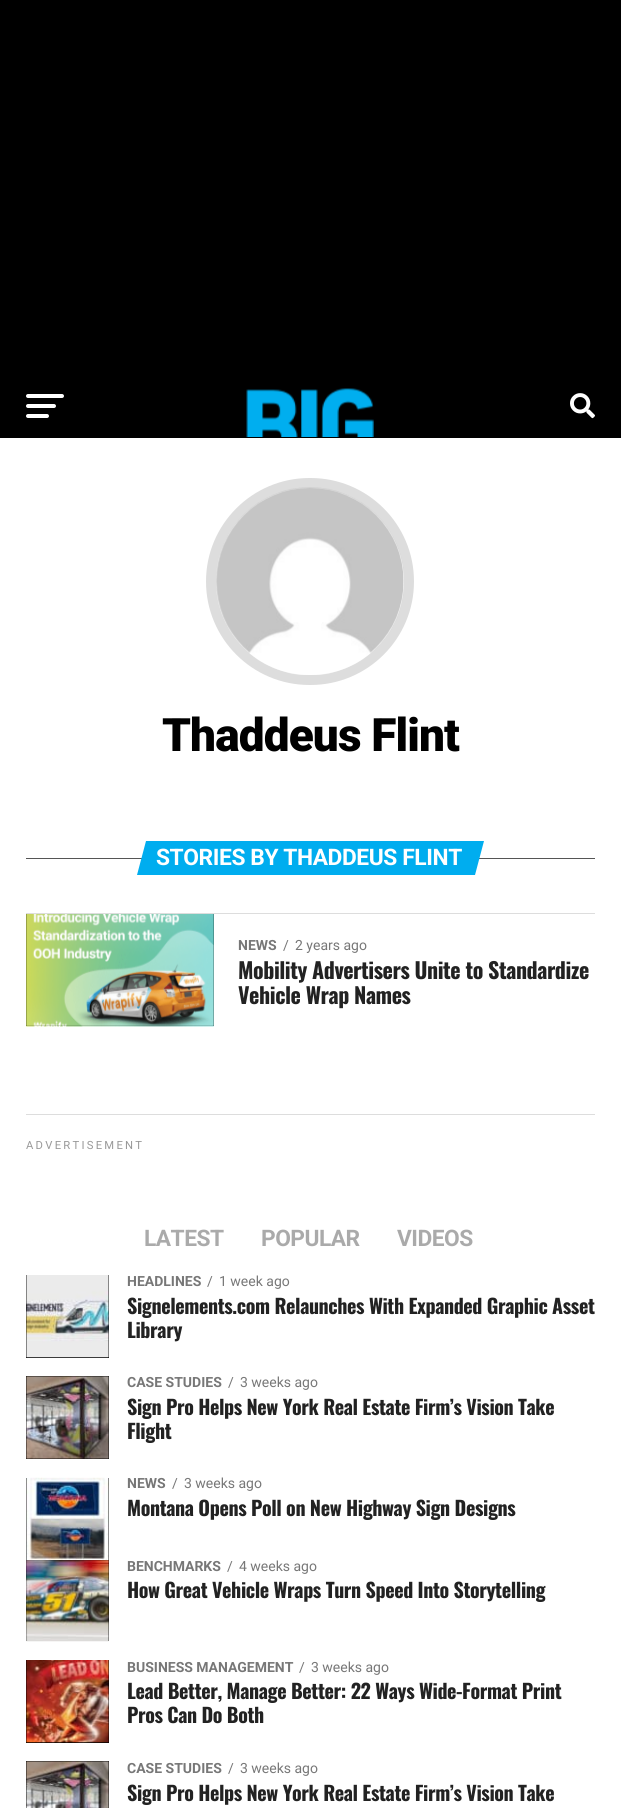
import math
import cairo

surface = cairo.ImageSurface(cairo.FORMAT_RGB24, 621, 1808)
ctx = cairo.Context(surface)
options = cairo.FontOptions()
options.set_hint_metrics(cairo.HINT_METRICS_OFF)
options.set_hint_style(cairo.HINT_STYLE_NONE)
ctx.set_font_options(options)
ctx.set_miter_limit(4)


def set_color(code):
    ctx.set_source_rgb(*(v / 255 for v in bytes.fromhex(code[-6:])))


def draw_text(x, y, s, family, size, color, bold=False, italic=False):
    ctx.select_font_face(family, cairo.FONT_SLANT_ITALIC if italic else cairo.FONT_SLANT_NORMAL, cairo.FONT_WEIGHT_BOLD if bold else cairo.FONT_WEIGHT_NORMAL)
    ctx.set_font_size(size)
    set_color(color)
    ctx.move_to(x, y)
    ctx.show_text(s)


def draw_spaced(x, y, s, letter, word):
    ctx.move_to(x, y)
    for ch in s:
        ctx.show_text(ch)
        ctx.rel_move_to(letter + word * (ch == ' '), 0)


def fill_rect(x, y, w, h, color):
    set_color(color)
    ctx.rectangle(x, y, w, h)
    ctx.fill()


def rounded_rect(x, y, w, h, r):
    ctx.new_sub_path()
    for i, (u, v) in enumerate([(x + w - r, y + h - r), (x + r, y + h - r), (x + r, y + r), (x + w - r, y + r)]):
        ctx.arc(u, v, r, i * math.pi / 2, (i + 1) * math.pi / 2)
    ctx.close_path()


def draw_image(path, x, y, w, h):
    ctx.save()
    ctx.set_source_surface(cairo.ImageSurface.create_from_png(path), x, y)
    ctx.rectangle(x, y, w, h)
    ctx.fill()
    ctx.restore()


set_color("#ffffff")
ctx.paint()
fill_rect(0, 0, 621, 438, "#000000")
set_color("#ffffff")
rounded_rect(26, 394, 38, 4, 2)
ctx.fill()
rounded_rect(26, 404, 30, 4, 2)
ctx.fill()
rounded_rect(26, 414, 23, 4, 2)
ctx.fill()
draw_image("assets/img1.png", 246, 388, 128, 49)
draw_image("assets/img2.png", 570, 393, 25, 26)
rounded_rect(211, 483, 198, 197, 98.5)
set_color("#dddddd")
ctx.set_line_width(10)
ctx.stroke()
draw_image("assets/img3.png", 216, 487, 188, 188)
ctx.select_font_face("Roboto Black")
ctx.set_font_size(46)
set_color("#000000")
draw_spaced(162, 751, "Thaddeus Flint", -0.9, 0)
fill_rect(26, 858, 569, 1, "#555555")
set_color("#00adef")
ctx.new_path()
ctx.move_to(146, 841)
ctx.line_to(484, 841)
ctx.line_to(475, 875)
ctx.line_to(137, 875)
ctx.close_path()
ctx.fill()
ctx.select_font_face("Roboto", cairo.FONT_SLANT_NORMAL, cairo.FONT_WEIGHT_BOLD)
ctx.set_font_size(22.75)
set_color("#ffffff")
draw_spaced(156, 865, "STORIES BY THADDEUS FLINT", -0.4, 0)
fill_rect(26, 913, 569, 1, "#dddddd")
fill_rect(26, 914, 188, 112, "#000000")
draw_image("assets/img4.png", 26, 914, 188, 113)
draw_text(238, 950, "NEWS", "Roboto", 14, "#777777", bold=True)
draw_text(283, 950, "/", "Roboto", 14, "#777777")
draw_text(295, 950, "2 years ago", "Roboto", 14, "#777777")
ctx.select_font_face("Oswald", cairo.FONT_SLANT_NORMAL, cairo.FONT_WEIGHT_BOLD)
ctx.set_font_size(22)
set_color("#222222")
draw_spaced(238, 979, "Mobility Advertisers Unite to Standardize", -0.45, 0)
draw_spaced(238, 1004, "Vehicle Wrap Names", -0.45, 0)
fill_rect(26, 1114, 569, 1, "#dddddd")
ctx.select_font_face("Roboto")
ctx.set_font_size(11.25)
set_color("#999999")
draw_spaced(26, 1149, "ADVERTISEMENT", 2.25, 0)
ctx.select_font_face("Roboto", cairo.FONT_SLANT_NORMAL, cairo.FONT_WEIGHT_BOLD)
ctx.set_font_size(22.75)
set_color("#aaaaaa")
draw_spaced(144, 1246, "LATEST", -0.5, 0)
draw_spaced(261, 1246, "POPULAR", -0.5, 0)
draw_spaced(397, 1246, "VIDEOS", -0.5, 0)
fill_rect(26, 1275, 83, 83, "#000000")
draw_image("assets/img5.png", 26, 1275, 83, 83)
draw_text(127, 1286, "HEADLINES", "Roboto", 14, "#777777", bold=True)
draw_text(207, 1286, "/", "Roboto", 14, "#777777")
draw_text(219, 1286, "1 week ago", "Roboto", 14, "#777777")
ctx.select_font_face("Oswald", cairo.FONT_SLANT_NORMAL, cairo.FONT_WEIGHT_BOLD)
ctx.set_font_size(20)
set_color("#222222")
draw_spaced(127, 1314, "Signelements.com Relaunches With Expanded Graphic Asset", -0.4, 0)
draw_spaced(127, 1338, "Library", -0.4, 0)
fill_rect(26, 1376, 83, 83, "#000000")
draw_image("assets/img6.png", 26, 1376, 83, 83)
draw_text(127, 1387, "CASE STUDIES", "Roboto", 14, "#777777", bold=True)
draw_text(228, 1387, "/", "Roboto", 14, "#777777")
draw_text(240, 1387, "3 weeks ago", "Roboto", 14, "#777777")
ctx.select_font_face("Oswald", cairo.FONT_SLANT_NORMAL, cairo.FONT_WEIGHT_BOLD)
ctx.set_font_size(20)
set_color("#222222")
draw_spaced(127, 1415, "Sign Pro Helps New York Real Estate Firm’s Vision Take", -0.4, 0)
draw_spaced(127, 1439, "Flight", -0.4, 0)
fill_rect(26, 1478, 83, 163, "#000000")
draw_image("assets/img7.png", 26, 1477, 83, 83)
draw_text(127, 1488, "NEWS", "Roboto", 14, "#777777", bold=True)
draw_text(172, 1488, "/", "Roboto", 14, "#777777")
draw_text(184, 1488, "3 weeks ago", "Roboto", 14, "#777777")
ctx.select_font_face("Oswald", cairo.FONT_SLANT_NORMAL, cairo.FONT_WEIGHT_BOLD)
ctx.set_font_size(20)
set_color("#222222")
draw_spaced(127, 1516, "Montana Opens Poll on New Highway Sign Designs", -0.4, 0)
draw_image("assets/img8.png", 26, 1560, 83, 82)
draw_text(127, 1571, "BENCHMARKS", "Roboto", 14, "#777777", bold=True)
draw_text(227, 1571, "/", "Roboto", 14, "#777777")
draw_text(239, 1571, "4 weeks ago", "Roboto", 14, "#777777")
ctx.select_font_face("Oswald", cairo.FONT_SLANT_NORMAL, cairo.FONT_WEIGHT_BOLD)
ctx.set_font_size(20)
set_color("#222222")
draw_spaced(127, 1598, "How Great Vehicle Wraps Turn Speed Into Storytelling", -0.4, 0)
fill_rect(26, 1660, 83, 83, "#000000")
draw_image("assets/img9.png", 26, 1660, 83, 83)
draw_text(127, 1672, "BUSINESS MANAGEMENT", "Roboto", 14, "#777777", bold=True)
draw_text(299, 1672, "/", "Roboto", 14, "#777777")
draw_text(311, 1672, "3 weeks ago", "Roboto", 14, "#777777")
ctx.select_font_face("Oswald", cairo.FONT_SLANT_NORMAL, cairo.FONT_WEIGHT_BOLD)
ctx.set_font_size(20)
set_color("#222222")
draw_spaced(127, 1699, "Lead Better, Manage Better: 22 Ways Wide-Format Print", -0.4, 0)
draw_spaced(127, 1723, "Pros Can Do Both", -0.4, 0)
fill_rect(26, 1761, 83, 47, "#000000")
draw_image("assets/img10.png", 26, 1761, 83, 47)
draw_text(127, 1773, "CASE STUDIES", "Roboto", 14, "#777777", bold=True)
draw_text(228, 1773, "/", "Roboto", 14, "#777777")
draw_text(240, 1773, "3 weeks ago", "Roboto", 14, "#777777")
ctx.select_font_face("Oswald", cairo.FONT_SLANT_NORMAL, cairo.FONT_WEIGHT_BOLD)
ctx.set_font_size(20)
set_color("#222222")
draw_spaced(127, 1801, "Sign Pro Helps New York Real Estate Firm’s Vision Take", -0.4, 0)
surface.write_to_png("output.png")
